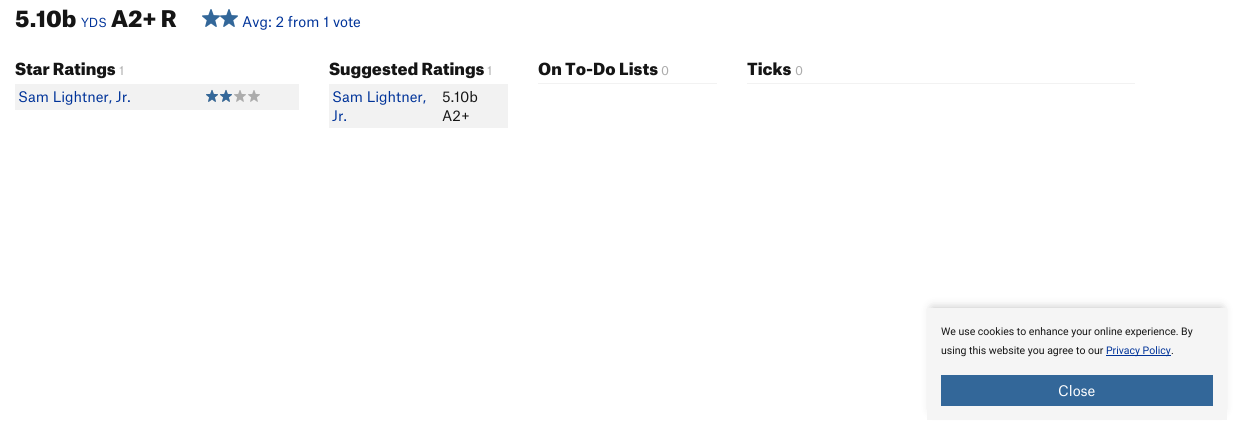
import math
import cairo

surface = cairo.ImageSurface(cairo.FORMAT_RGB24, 1255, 448)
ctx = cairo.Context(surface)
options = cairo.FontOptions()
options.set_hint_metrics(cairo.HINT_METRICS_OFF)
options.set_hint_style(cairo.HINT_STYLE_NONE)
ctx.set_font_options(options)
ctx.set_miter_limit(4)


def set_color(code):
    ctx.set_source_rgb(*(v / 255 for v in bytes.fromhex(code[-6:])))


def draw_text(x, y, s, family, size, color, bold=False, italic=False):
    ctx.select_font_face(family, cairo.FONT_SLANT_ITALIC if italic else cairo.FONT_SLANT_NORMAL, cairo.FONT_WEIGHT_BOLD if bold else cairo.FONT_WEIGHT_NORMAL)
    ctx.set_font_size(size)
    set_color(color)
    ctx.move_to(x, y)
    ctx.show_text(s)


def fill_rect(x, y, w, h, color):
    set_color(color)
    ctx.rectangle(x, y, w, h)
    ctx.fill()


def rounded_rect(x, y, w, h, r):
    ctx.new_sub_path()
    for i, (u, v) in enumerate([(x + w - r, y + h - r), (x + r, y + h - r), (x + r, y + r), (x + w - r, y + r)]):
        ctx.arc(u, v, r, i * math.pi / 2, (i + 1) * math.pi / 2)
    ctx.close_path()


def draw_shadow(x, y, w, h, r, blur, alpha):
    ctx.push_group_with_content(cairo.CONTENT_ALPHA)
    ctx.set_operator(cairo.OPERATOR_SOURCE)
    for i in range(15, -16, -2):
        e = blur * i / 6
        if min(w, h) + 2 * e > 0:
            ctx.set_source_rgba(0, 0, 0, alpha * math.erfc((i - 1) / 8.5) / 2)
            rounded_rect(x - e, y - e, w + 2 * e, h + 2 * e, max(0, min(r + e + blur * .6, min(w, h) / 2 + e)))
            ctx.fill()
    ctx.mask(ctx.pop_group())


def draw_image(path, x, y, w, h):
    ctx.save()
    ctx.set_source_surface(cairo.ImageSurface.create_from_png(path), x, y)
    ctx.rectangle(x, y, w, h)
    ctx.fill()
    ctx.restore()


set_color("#ffffff")
ctx.paint()
draw_text(15, 27, "5.10b", "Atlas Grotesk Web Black", 22, "#151515")
draw_text(81, 27, "YDS", "Atlas Grotesk Web", 12, "#003399")
draw_text(111, 27, "A2+ R", "Atlas Grotesk Web Black", 22, "#151515")
draw_image("assets/img1.png", 202, 9, 18, 18)
draw_image("assets/img1.png", 220, 9, 18, 18)
draw_text(242, 27, "Avg: 2 from 1 vote", "Atlas Grotesk Web", 14, "#003399")
draw_text(15, 75, "Star Ratings", "Atlas Grotesk Web Black", 16, "#151515")
draw_text(119, 75, "1", "Atlas Grotesk Web", 12, "#acacac")
fill_rect(15, 84, 284, 26, "#f2f2f2")
draw_text(18, 102, "Sam Lightner, Jr.", "Atlas Grotesk Web", 14, "#003399")
draw_image("assets/img3.png", 206, 90, 54, 12)
draw_image("assets/img2.png", 206, 89, 26, 13)
draw_text(329, 75, "Suggested Ratings", "Atlas Grotesk Web Black", 16, "#151515")
draw_text(487, 75, "1", "Atlas Grotesk Web", 12, "#acacac")
fill_rect(329, 84, 179, 44, "#f2f2f2")
draw_text(332, 102, "Sam Lightner,", "Atlas Grotesk Web", 14, "#003399")
draw_text(332, 121, "Jr.", "Atlas Grotesk Web", 14, "#003399")
draw_text(442, 102, "5.10b", "Atlas Grotesk Web", 14, "#151515")
draw_text(442, 121, "A2+", "Atlas Grotesk Web", 14, "#151515")
draw_text(538, 75, "On To-Do Lists", "Atlas Grotesk Web Black", 16, "#151515")
draw_text(661, 75, "0", "Atlas Grotesk Web", 12, "#acacac")
fill_rect(538, 83, 179, 1, "#f2f2f2")
draw_text(747, 75, "Ticks", "Atlas Grotesk Web Black", 16, "#151515")
draw_text(795, 75, "0", "Atlas Grotesk Web", 12, "#acacac")
fill_rect(747, 83, 388, 1, "#f2f2f2")
set_color("#000000")
draw_shadow(932, 308, 290, 102, 0, 5, 0.25)
fill_rect(927, 308, 300, 112, "#f5f5f5")
draw_text(941, 335, "We use cookies to enhance your online experience. By", "Roboto", 10.5, "#151515")
draw_text(941, 354, "using this website you agree to our", "Roboto", 10.5, "#151515")
fill_rect(1106, 355, 65, 1, "#003399")
draw_text(1106, 354, "Privacy Policy", "Roboto", 10.5, "#003399")
draw_text(1171, 354, ".", "Roboto", 10.5, "#151515")
fill_rect(941, 375, 272, 31, "#336799")
draw_text(1058, 396, "Close", "Atlas Grotesk Web", 14, "#ffffff")
surface.write_to_png("output.png")
